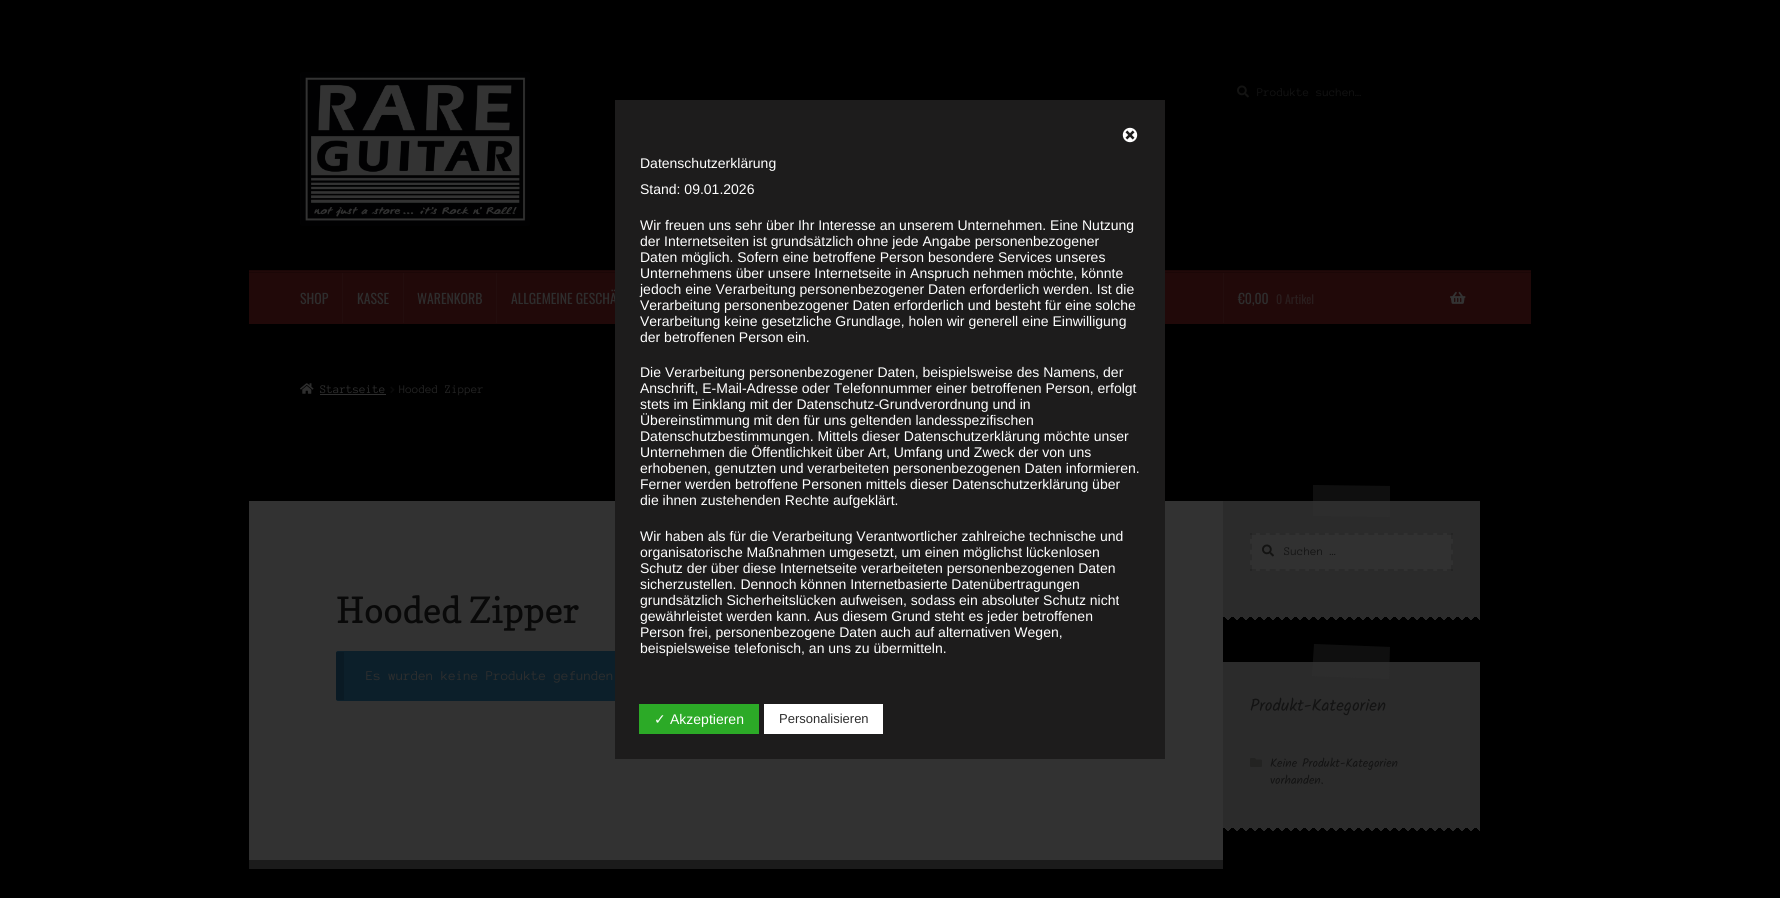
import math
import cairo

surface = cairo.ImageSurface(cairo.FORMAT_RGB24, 1780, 898)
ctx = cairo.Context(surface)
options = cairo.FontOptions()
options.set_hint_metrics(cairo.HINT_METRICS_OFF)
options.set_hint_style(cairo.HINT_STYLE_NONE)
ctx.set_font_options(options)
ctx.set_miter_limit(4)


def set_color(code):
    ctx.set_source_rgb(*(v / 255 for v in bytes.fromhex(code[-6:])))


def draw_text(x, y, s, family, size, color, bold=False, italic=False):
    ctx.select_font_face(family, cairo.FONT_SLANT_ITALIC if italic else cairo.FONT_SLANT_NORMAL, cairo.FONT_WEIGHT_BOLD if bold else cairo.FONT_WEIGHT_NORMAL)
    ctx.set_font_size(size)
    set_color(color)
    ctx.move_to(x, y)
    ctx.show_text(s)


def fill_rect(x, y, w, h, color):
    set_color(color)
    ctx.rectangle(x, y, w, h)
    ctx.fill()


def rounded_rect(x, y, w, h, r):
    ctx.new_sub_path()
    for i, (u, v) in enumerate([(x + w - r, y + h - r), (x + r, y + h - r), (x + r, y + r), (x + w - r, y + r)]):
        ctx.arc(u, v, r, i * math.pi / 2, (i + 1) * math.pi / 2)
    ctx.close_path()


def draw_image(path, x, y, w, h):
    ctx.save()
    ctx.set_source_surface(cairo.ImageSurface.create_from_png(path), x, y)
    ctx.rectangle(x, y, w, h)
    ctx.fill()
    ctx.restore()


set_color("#000000")
ctx.paint()
draw_image("assets/img1.png", 300, 72, 230, 154)
draw_image("assets/img2.png", 1237, 85, 12, 13)
draw_text(1257, 96, "Produkte suchen…", "Anonymous Pro", 12, "#131313")
fill_rect(249, 271, 1282, 53, "#210909")
fill_rect(249, 270, 1282, 1, "#1b0707")
fill_rect(249, 272, 1282, 1, "#1b0707")
fill_rect(342, 273, 1, 50, "#230d0d")
draw_text(300, 304, "SHOP", "Oswald", 13.75, "#2e2e2e")
fill_rect(403, 273, 1, 50, "#230d0d")
draw_text(357, 304, "KASSE", "Oswald", 13.75, "#2e2e2e")
fill_rect(496, 273, 1, 50, "#230d0d")
draw_text(417, 304, "WARENKORB", "Oswald", 13.75, "#2e2e2e")
draw_text(511, 304, "ALLGEMEINE GESCHÄ", "Oswald", 13.75, "#2e2e2e")
fill_rect(1223, 273, 1, 50, "#230d0d")
draw_text(1238, 304, "€0,00", "Oswald", 13.75, "#2e2e2e")
draw_text(1276, 304, "0 Artikel", "Oswald", 12, "#2a1e1e")
draw_image("assets/img3.png", 1450, 291, 16, 13)
draw_image("assets/img4.png", 300, 383, 14, 11)
draw_text(320, 393, "Startseite", "Anonymous Pro", 12, "#2e2e2e")
fill_rect(320, 394, 66, 1, "#2e2e2e")
draw_image("assets/img5.png", 390, 386, 5, 7)
draw_text(399, 393, "Hooded Zipper", "Anonymous Pro", 12, "#242424")
fill_rect(249, 501, 974, 359, "#323232")
draw_text(336, 623, "Hooded Zipper", "Copse", 36, "#090909")
set_color("#0c1f2a")
rounded_rect(336, 651, 800, 50, 2)
ctx.fill()
ctx.set_source_rgba(0, 0, 0, 0.15)
ctx.rectangle(336, 652, 8, 48)
ctx.fill()
draw_text(366, 680, "Es wurden keine Produkte gefunden", "Anonymous Pro", 13.75, "#2e2e2e")
fill_rect(249, 860, 974, 9, "#1b1b1b")
fill_rect(1223, 501, 257, 116, "#2b2b2b")
ctx.set_source_rgba(0.2, 0.2, 0.2, 0.3)
ctx.new_path()
ctx.move_to(1313, 485)
ctx.line_to(1390, 486)
ctx.line_to(1390, 517)
ctx.line_to(1313, 516)
ctx.close_path()
ctx.fill()
fill_rect(1250, 533, 203, 38, "#313131")
draw_image("assets/img6.png", 1262, 544, 12, 13)
ctx.new_path()
ctx.move_to(1250, 534)
ctx.line_to(1453, 534)
set_color("#2a2a2a")
ctx.set_dash([6, 3.85])
ctx.stroke()
ctx.new_path()
ctx.move_to(1452, 533)
ctx.line_to(1452, 571)
ctx.set_source_rgba(0, 0, 0, 0.15)
ctx.set_dash([6, 4.67])
ctx.stroke()
ctx.new_path()
ctx.move_to(1250, 570)
ctx.line_to(1453, 570)
ctx.set_dash([6, 3.85])
ctx.stroke()
ctx.new_path()
ctx.move_to(1251, 533)
ctx.line_to(1251, 571)
ctx.set_dash([6, 4.67])
ctx.stroke()
ctx.save()
ctx.rectangle(1284, 545, 155, 12)
ctx.clip()
draw_text(1284, 555, "Suchen …", "Anonymous Pro", 12, "#131313")
ctx.restore()
draw_image("assets/img7.png", 1225, 617, 255, 3)
draw_image("assets/img8.png", 1228, 617, 246, 3)
fill_rect(1223, 662, 257, 166, "#2b2b2b")
ctx.set_source_rgba(0.2, 0.2, 0.2, 0.3)
ctx.new_path()
ctx.move_to(1314, 644)
ctx.line_to(1390, 647)
ctx.line_to(1389, 679)
ctx.line_to(1312, 676)
ctx.close_path()
ctx.fill()
draw_text(1250, 711, "Produkt-Kategorien", "Kalam", 17, "#131313")
draw_image("assets/img9.png", 1250, 758, 12, 9)
draw_text(1270, 767, "Keine Produkt-Kategorien", "Kalam", 12, "#131313")
draw_text(1270, 784, "vorhanden.", "Kalam", 12, "#131313")
draw_image("assets/img7.png", 1225, 828, 255, 3)
draw_image("assets/img8.png", 1228, 828, 246, 3)
fill_rect(615, 100, 550, 659, "#1d1c1c")
draw_image("assets/img10.png", 1122, 127, 16, 16)
draw_text(640, 168, "Datenschutzerklärung", "Liberation Sans", 14, "#ffffff")
draw_text(640, 194, "Stand: 09.01.2026", "Liberation Sans", 14, "#ffffff")
draw_text(640, 230, "Wir freuen uns sehr über Ihr Interesse an unserem Unternehmen. Eine Nutzung", "Liberation Sans", 14, "#ffffff")
draw_text(640, 246, "der Internetseiten ist grundsätzlich ohne jede Angabe personenbezogener", "Liberation Sans", 14, "#ffffff")
draw_text(640, 262, "Daten möglich. Sofern eine betroffene Person besondere Services unseres", "Liberation Sans", 14, "#ffffff")
draw_text(640, 278, "Unternehmens über unsere Internetseite in Anspruch nehmen möchte, könnte", "Liberation Sans", 14, "#ffffff")
draw_text(640, 294, "jedoch eine Verarbeitung personenbezogener Daten erforderlich werden. Ist die", "Liberation Sans", 14, "#ffffff")
draw_text(640, 310, "Verarbeitung personenbezogener Daten erforderlich und besteht für eine solche", "Liberation Sans", 14, "#ffffff")
draw_text(640, 326, "Verarbeitung keine gesetzliche Grundlage, holen wir generell eine Einwilligung", "Liberation Sans", 14, "#ffffff")
draw_text(640, 342, "der betroffenen Person ein.", "Liberation Sans", 14, "#ffffff")
draw_text(640, 377, "Die Verarbeitung personenbezogener Daten, beispielsweise des Namens, der", "Liberation Sans", 14, "#ffffff")
draw_text(640, 393, "Anschrift, E-Mail-Adresse oder Telefonnummer einer betroffenen Person, erfolgt", "Liberation Sans", 14, "#ffffff")
draw_text(640, 409, "stets im Einklang mit der Datenschutz-Grundverordnung und in", "Liberation Sans", 14, "#ffffff")
draw_text(640, 425, "Übereinstimmung mit den für uns geltenden landesspezifischen", "Liberation Sans", 14, "#ffffff")
draw_text(640, 441, "Datenschutzbestimmungen. Mittels dieser Datenschutzerklärung möchte unser", "Liberation Sans", 14, "#ffffff")
draw_text(640, 457, "Unternehmen die Öffentlichkeit über Art, Umfang und Zweck der von uns", "Liberation Sans", 14, "#ffffff")
draw_text(640, 473, "erhobenen, genutzten und verarbeiteten personenbezogenen Daten informieren.", "Liberation Sans", 14, "#ffffff")
draw_text(640, 489, "Ferner werden betroffene Personen mittels dieser Datenschutzerklärung über", "Liberation Sans", 14, "#ffffff")
draw_text(640, 505, "die ihnen zustehenden Rechte aufgeklärt.", "Liberation Sans", 14, "#ffffff")
draw_text(640, 541, "Wir haben als für die Verarbeitung Verantwortlicher zahlreiche technische und", "Liberation Sans", 14, "#ffffff")
draw_text(640, 557, "organisatorische Maßnahmen umgesetzt, um einen möglichst lückenlosen", "Liberation Sans", 14, "#ffffff")
draw_text(640, 573, "Schutz der über diese Internetseite verarbeiteten personenbezogenen Daten", "Liberation Sans", 14, "#ffffff")
draw_text(640, 589, "sicherzustellen. Dennoch können Internetbasierte Datenübertragungen", "Liberation Sans", 14, "#ffffff")
draw_text(640, 605, "grundsätzlich Sicherheitslücken aufweisen, sodass ein absoluter Schutz nicht", "Liberation Sans", 14, "#ffffff")
draw_text(640, 621, "gewährleistet werden kann. Aus diesem Grund steht es jeder betroffenen", "Liberation Sans", 14, "#ffffff")
draw_text(640, 637, "Person frei, personenbezogene Daten auch auf alternativen Wegen,", "Liberation Sans", 14, "#ffffff")
draw_text(640, 653, "beispielsweise telefonisch, an uns zu übermitteln.", "Liberation Sans", 14, "#ffffff")
fill_rect(639, 704, 120, 30, "#2caa27")
draw_text(654, 724, "✓", "DejaVu Sans", 14, "#ffffff")
draw_text(670, 724, "Akzeptieren", "Liberation Sans", 14, "#ffffff")
fill_rect(764, 704, 119, 30, "#ffffff")
draw_text(779, 723, "Personalisieren", "Liberation Sans", 13, "#2e2e2e")
surface.write_to_png("output.png")
